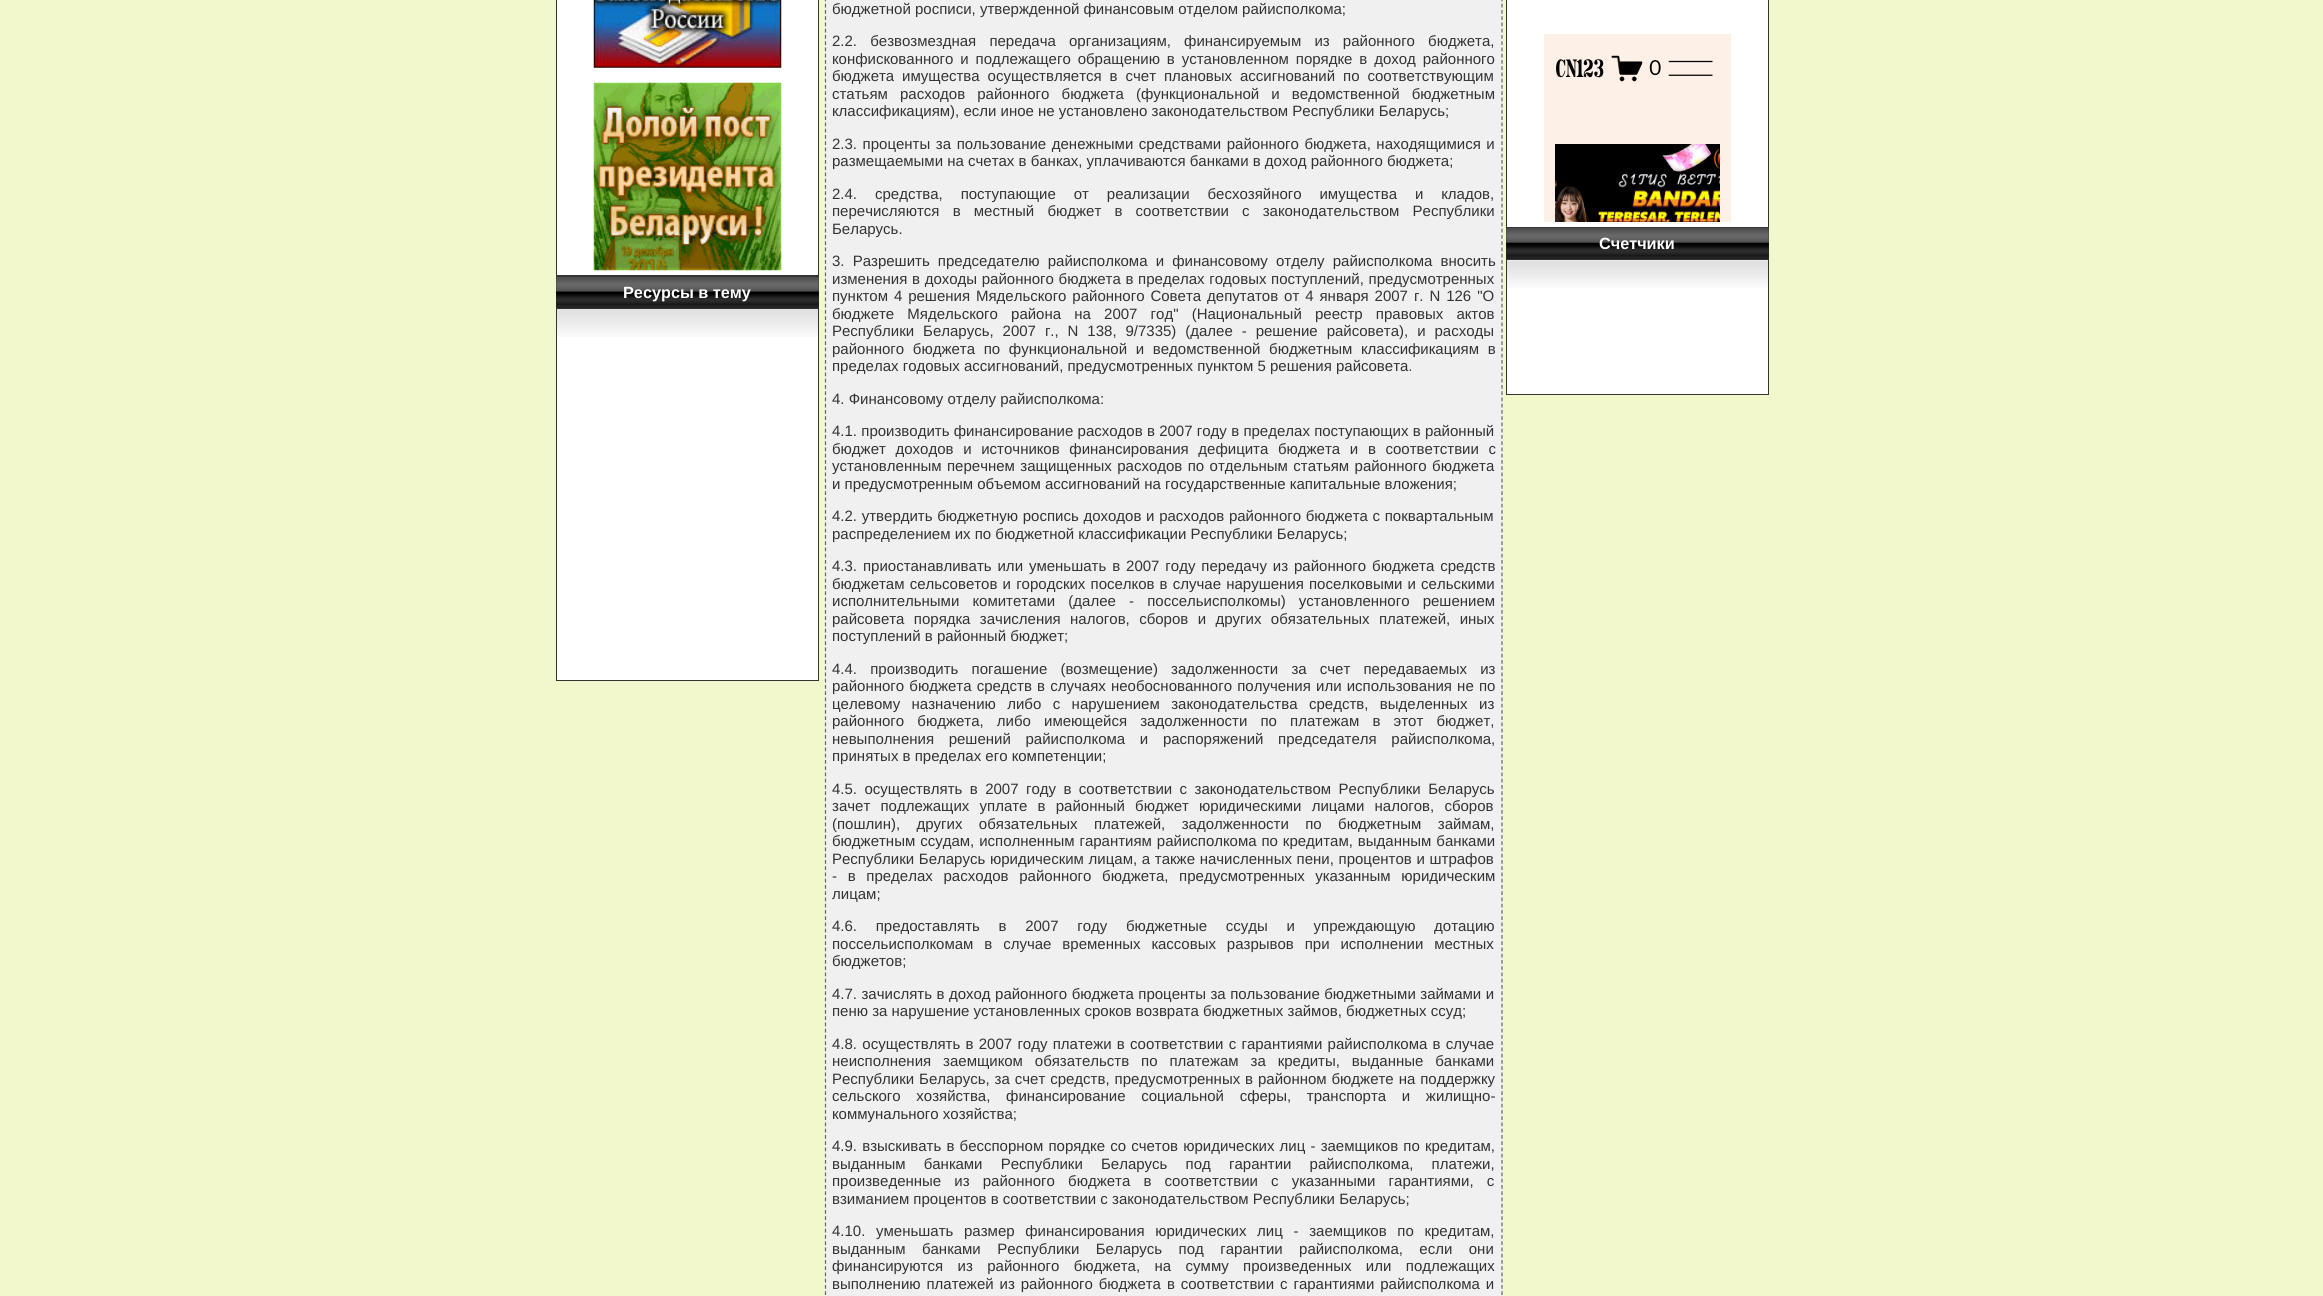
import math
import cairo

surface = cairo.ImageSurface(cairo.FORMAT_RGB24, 2323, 1296)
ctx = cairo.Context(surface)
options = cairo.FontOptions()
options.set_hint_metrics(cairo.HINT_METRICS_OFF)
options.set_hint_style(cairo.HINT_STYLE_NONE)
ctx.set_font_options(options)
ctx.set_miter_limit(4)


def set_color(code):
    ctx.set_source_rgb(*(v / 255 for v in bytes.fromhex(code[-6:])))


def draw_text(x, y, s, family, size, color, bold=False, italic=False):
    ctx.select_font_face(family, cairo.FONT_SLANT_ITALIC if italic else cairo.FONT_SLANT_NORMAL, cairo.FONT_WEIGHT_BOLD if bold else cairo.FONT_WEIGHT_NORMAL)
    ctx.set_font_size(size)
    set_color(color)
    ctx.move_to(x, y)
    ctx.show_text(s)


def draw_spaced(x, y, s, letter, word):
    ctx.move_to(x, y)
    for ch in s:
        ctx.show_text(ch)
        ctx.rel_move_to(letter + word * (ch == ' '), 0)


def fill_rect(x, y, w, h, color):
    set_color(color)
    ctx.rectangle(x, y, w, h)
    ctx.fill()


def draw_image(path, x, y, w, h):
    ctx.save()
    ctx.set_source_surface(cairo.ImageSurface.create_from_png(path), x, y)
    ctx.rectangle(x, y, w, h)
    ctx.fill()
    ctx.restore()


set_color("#f3f7cc")
ctx.paint()
fill_rect(825, 0, 678, 1296, "#f0f0f0")
ctx.new_path()
ctx.move_to(1502, -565)
ctx.line_to(1502, 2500)
set_color("#666666")
ctx.set_line_width(1.2)
ctx.set_dash([3.75, 2.5])
ctx.stroke()
ctx.new_path()
ctx.move_to(825.5, -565)
ctx.line_to(825.5, 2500)
ctx.stroke()
draw_text(832, 14, "бюджетной росписи, утвержденной финансовым отделом райисполкома;", "Liberation Sans", 15, "#333333")
draw_spaced(832, 46, "2.2. безвозмездная передача организациям, финансируемым из районного бюджета,", 0, 9)
draw_spaced(832, 64, "конфискованного и подлежащего обращению в установленном порядке в доход районного", 0, 2.75)
draw_spaced(832, 81, "бюджета имущества осуществляется в счет плановых ассигнований по соответствующим", 0, 3.75)
draw_spaced(832, 99, "статьям расходов районного бюджета (функциональной и ведомственной бюджетным", 0, 8)
draw_text(832, 116, "классификациям), если иное не установлено законодательством Республики Беларусь;", "Liberation Sans", 15, "#333333")
draw_spaced(832, 149, "2.3. проценты за пользование денежными средствами районного бюджета, находящимися и", 0, 1.4)
draw_text(832, 166, "размещаемыми на счетах в банках, уплачиваются банками в доход районного бюджета;", "Liberation Sans", 15, "#333333")
draw_spaced(832, 199, "2.4. средства, поступающие от реализации бесхозяйного имущества и кладов,", 0, 13.75)
draw_spaced(832, 216, "перечисляются в местный бюджет в соответствии с законодательством Республики", 0, 9)
draw_text(832, 234, "Беларусь.", "Liberation Sans", 15, "#333333")
draw_spaced(832, 266, "3. Разрешить председателю райисполкома и финансовому отделу райисполкома вносить", 0, 4)
draw_spaced(832, 284, "изменения в доходы районного бюджета в пределах годовых поступлений, предусмотренных", 0, 0.5)
draw_spaced(832, 301, "пунктом 4 решения Мядельского районного Совета депутатов от 4 января 2007 г. N 126 \"О", 0, 1.75)
draw_spaced(832, 319, "бюджете Мядельского района на 2007 год\" (Национальный реестр правовых актов", 0, 9)
draw_spaced(832, 336, "Республики Беларусь, 2007 г., N 138, 9/7335) (далее - решение райсовета), и расходы", 0, 4.75)
draw_spaced(832, 354, "районного бюджета по функциональной и ведомственной бюджетным классификациям в", 0, 4.5)
draw_text(832, 371, "пределах годовых ассигнований, предусмотренных пунктом 5 решения райсовета.", "Liberation Sans", 15, "#333333")
draw_text(832, 404, "4. Финансовому отделу райисполкома:", "Liberation Sans", 15, "#333333")
draw_spaced(832, 436, "4.1. производить финансирование расходов в 2007 году в пределах поступающих в районный", 0, 0.1)
draw_spaced(832, 454, "бюджет доходов и источников финансирования дефицита бюджета и в соответствии с", 0, 5.5)
draw_spaced(832, 471, "установленным перечнем защищенных расходов по отдельным статьям районного бюджета", 0, 1.25)
draw_text(832, 489, "и предусмотренным объемом ассигнований на государственные капитальные вложения;", "Liberation Sans", 15, "#333333")
draw_spaced(832, 521, "4.2. утвердить бюджетную роспись доходов и расходов районного бюджета с поквартальным", 0, 0.5)
draw_text(832, 539, "распределением их по бюджетной классификации Республики Беларусь;", "Liberation Sans", 15, "#333333")
draw_spaced(832, 571, "4.3. приостанавливать или уменьшать в 2007 году передачу из районного бюджета средств", 0, 1.75)
draw_spaced(832, 589, "бюджетам сельсоветов и городских поселков в случае нарушения поселковыми и сельскими", 0, 1)
draw_spaced(832, 606, "исполнительными комитетами (далее - поссельисполкомы) установленного решением", 0, 9)
draw_spaced(832, 624, "райсовета порядка зачисления налогов, сборов и других обязательных платежей, иных", 0, 5.25)
draw_text(832, 641, "поступлений в районный бюджет;", "Liberation Sans", 15, "#333333")
draw_spaced(832, 674, "4.4. производить погашение (возмещение) задолженности за счет передаваемых из", 0, 9)
draw_spaced(832, 691, "районного бюджета средств в случаях необоснованного получения или использования не по", 0, 1)
draw_spaced(832, 709, "целевому назначению либо с нарушением законодательства средств, выделенных из", 0, 7.25)
draw_spaced(832, 726, "районного бюджета, либо имеющейся задолженности по платежам в этот бюджет,", 0, 9)
draw_spaced(832, 744, "невыполнения решений райисполкома и распоряжений председателя райисполкома,", 0, 10.5)
draw_text(832, 761, "принятых в пределах его компетенции;", "Liberation Sans", 15, "#333333")
draw_spaced(832, 794, "4.5. осуществлять в 2007 году в соответствии с законодательством Республики Беларусь", 0, 3.25)
draw_spaced(832, 811, "зачет подлежащих уплате в районный бюджет юридическими лицами налогов, сборов", 0, 6)
draw_spaced(832, 829, "(пошлин), других обязательных платежей, задолженности по бюджетным займам,", 0, 12.25)
draw_spaced(832, 846, "бюджетным ссудам, исполненным гарантиям райисполкома по кредитам, выданным банками", 0, 0.75)
draw_spaced(832, 864, "Республики Беларусь юридическим лицам, а также начисленных пени, процентов и штрафов", 0, 0.5)
draw_spaced(832, 881, "- в пределах расходов районного бюджета, предусмотренных указанным юридическим", 0, 6.5)
draw_text(832, 899, "лицам;", "Liberation Sans", 15, "#333333")
draw_spaced(832, 931, "4.6. предоставлять в 2007 году бюджетные ссуды и упреждающую дотацию", 0, 14.5)
draw_spaced(832, 949, "поссельисполкомам в случае временных кассовых разрывов при исполнении местных", 0, 6.75)
draw_text(832, 966, "бюджетов;", "Liberation Sans", 15, "#333333")
draw_spaced(832, 999, "4.7. зачислять в доход районного бюджета проценты за пользование бюджетными займами и", 0, 0.3)
draw_text(832, 1016, "пеню за нарушение установленных сроков возврата бюджетных займов, бюджетных ссуд;", "Liberation Sans", 15, "#333333")
draw_spaced(832, 1049, "4.8. осуществлять в 2007 году платежи в соответствии с гарантиями райисполкома в случае", 0, 1.1)
draw_spaced(832, 1066, "неисполнения заемщиком обязательств по платежам за кредиты, выданные банками", 0, 7.75)
draw_spaced(832, 1084, "Республики Беларусь, за счет средств, предусмотренных в районном бюджете на поддержку", 0, 0.75)
draw_spaced(832, 1101, "сельского хозяйства, финансирование социальной сферы, транспорта и жилищно-", 0, 11.5)
draw_text(832, 1119, "коммунального хозяйства;", "Liberation Sans", 15, "#333333")
draw_spaced(832, 1151, "4.9. взыскивать в бесспорном порядке со счетов юридических лиц - заемщиков по кредитам,", 0, 1)
draw_spaced(832, 1169, "выданным банками Республики Беларусь под гарантии райисполкома, платежи,", 0, 14)
draw_spaced(832, 1186, "произведенные из районного бюджета в соответствии с указанными гарантиями, с", 0, 9)
draw_text(832, 1204, "взиманием процентов в соответствии с законодательством Республики Беларусь;", "Liberation Sans", 15, "#333333")
draw_spaced(832, 1236, "4.10. уменьшать размер финансирования юридических лиц - заемщиков по кредитам,", 0, 6.5)
draw_spaced(832, 1254, "выданным банками Республики Беларусь под гарантии райисполкома, если они", 0, 12.25)
draw_spaced(832, 1271, "финансируются из районного бюджета, на сумму произведенных или подлежащих", 0, 10.25)
draw_spaced(832, 1289, "выполнению платежей из районного бюджета в соответствии с гарантиями райисполкома и", 0, 1.75)
set_color("#ffffff")
ctx.rectangle(1506.5, -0.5, 262, 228)
ctx.fill_preserve()
set_color("#333333")
ctx.set_line_width(1)
ctx.set_dash([])
ctx.stroke()
draw_image("assets/img1.png", 1544, 34, 187, 188)
fill_rect(1506, 228, 263, 31, "#222222")
draw_image("assets/img2.png", 1506, 227, 263, 30)
draw_text(1599, 249, "Счетчики", "Liberation Sans", 16.25, "#ffffff", bold=True)
fill_rect(1507, 260, 261, 134, "#ffffff")
draw_image("assets/img3.png", 1507, 260, 261, 28)
ctx.rectangle(1506.5, 259.5, 262, 135)
set_color("#333333")
ctx.stroke()
set_color("#ffffff")
ctx.rectangle(556.5, -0.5, 262, 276)
ctx.fill_preserve()
set_color("#333333")
ctx.stroke()
draw_image("assets/img4.png", 593, 0, 189, 68)
draw_image("assets/img5.png", 593, 82, 189, 189)
fill_rect(556, 276, 263, 32, "#222222")
draw_image("assets/img6.png", 556, 276, 263, 29)
draw_text(623, 298, "Ресурсы в тему", "Liberation Sans", 16.25, "#ffffff", bold=True)
fill_rect(557, 337, 261, 343, "#ffffff")
draw_image("assets/img7.png", 557, 309, 261, 28)
ctx.rectangle(556.5, 308.5, 262, 372)
set_color("#333333")
ctx.stroke()
surface.write_to_png("output.png")
